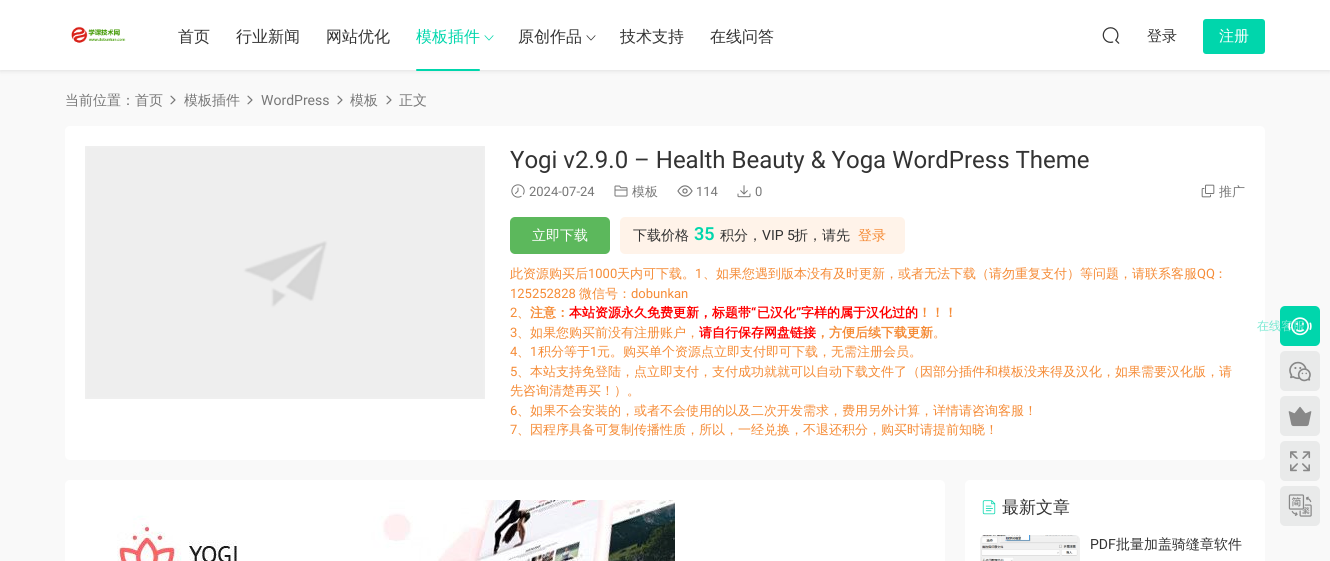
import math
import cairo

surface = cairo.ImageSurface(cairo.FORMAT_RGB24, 1330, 561)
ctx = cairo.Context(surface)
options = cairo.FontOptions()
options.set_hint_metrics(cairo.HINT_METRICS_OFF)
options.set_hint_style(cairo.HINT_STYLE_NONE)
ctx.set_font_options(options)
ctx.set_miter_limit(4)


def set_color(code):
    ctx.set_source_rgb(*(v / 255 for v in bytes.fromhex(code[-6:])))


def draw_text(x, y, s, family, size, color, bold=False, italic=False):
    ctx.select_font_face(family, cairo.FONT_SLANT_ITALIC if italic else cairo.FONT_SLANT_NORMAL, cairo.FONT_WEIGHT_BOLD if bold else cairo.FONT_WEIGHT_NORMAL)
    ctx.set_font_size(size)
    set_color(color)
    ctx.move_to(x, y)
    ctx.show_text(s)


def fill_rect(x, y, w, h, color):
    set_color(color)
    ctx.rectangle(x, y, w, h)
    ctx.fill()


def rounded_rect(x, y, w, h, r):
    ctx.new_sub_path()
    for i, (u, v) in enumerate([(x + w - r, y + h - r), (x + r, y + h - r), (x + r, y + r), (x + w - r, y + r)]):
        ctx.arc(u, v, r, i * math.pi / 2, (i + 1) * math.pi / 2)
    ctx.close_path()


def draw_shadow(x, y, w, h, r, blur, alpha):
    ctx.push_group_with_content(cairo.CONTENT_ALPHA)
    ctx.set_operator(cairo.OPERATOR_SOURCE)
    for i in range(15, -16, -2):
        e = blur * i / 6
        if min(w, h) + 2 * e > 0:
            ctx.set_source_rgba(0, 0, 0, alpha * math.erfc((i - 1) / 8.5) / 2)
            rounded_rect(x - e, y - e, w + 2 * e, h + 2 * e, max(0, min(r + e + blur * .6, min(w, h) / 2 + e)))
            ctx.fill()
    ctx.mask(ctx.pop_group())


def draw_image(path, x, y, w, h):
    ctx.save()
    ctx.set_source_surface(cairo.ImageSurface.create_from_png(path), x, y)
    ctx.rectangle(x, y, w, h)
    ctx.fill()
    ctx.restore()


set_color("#f9f9f9")
ctx.paint()
set_color("#000000")
draw_shadow(0, 1, 1330, 70, 0, 2.5, 0.1)
fill_rect(0, 0, 1330, 70, "#ffffff")
draw_image("assets/img1.png", 71, 26, 55, 17)
draw_text(178, 42, "首页", "WenQuanYi Zen Hei Medium", 16, "#333333")
draw_text(236, 42, "行业新闻", "WenQuanYi Zen Hei Medium", 16, "#333333")
draw_text(326, 42, "网站优化", "WenQuanYi Zen Hei Medium", 16, "#333333")
draw_text(416, 42, "模板插件", "WenQuanYi Zen Hei Medium", 16, "#00d6ac")
rounded_rect(416, 69, 64, 2, 1)
ctx.fill()
draw_image("assets/img2.png", 484, 35, 10, 6)
draw_text(518, 42, "原创作品", "WenQuanYi Zen Hei Medium", 16, "#333333")
draw_image("assets/img3.png", 586, 35, 10, 6)
draw_text(620, 42, "技术支持", "WenQuanYi Zen Hei Medium", 16, "#333333")
draw_text(710, 42, "在线问答", "WenQuanYi Zen Hei Medium", 16, "#333333")
draw_image("assets/img4.png", 1102, 27, 18, 17)
draw_text(1147, 41, "登录", "WenQuanYi Zen Hei Medium", 15, "#333333")
set_color("#00d6ac")
rounded_rect(1203, 19, 62, 35, 3)
ctx.fill()
draw_text(1219, 41, "注册", "WenQuanYi Zen Hei Medium", 15, "#ffffff")
draw_text(65, 105, "当前位置：首页", "WenQuanYi Zen Hei Medium", 14, "#777777")
draw_image("assets/img5.png", 170, 95, 6, 10)
draw_text(184, 105, "模板插件", "WenQuanYi Zen Hei Medium", 14, "#777777")
draw_image("assets/img5.png", 247, 95, 6, 10)
draw_text(261, 105, "WordPress", "Roboto", 14, "#777777")
draw_image("assets/img5.png", 337, 95, 6, 10)
draw_text(350, 105, "模板", "WenQuanYi Zen Hei Medium", 14, "#777777")
draw_image("assets/img5.png", 386, 95, 6, 10)
draw_text(399, 105, "正文", "WenQuanYi Zen Hei Medium", 14, "#777777")
set_color("#ffffff")
rounded_rect(65, 126, 1200, 334, 5)
ctx.fill()
draw_image("assets/img6.png", 85, 146, 400, 253)
draw_text(510, 168, "Yogi v2.9.0 – Health Beauty & Yoga WordPress Theme", "Roboto", 24, "#333333")
draw_image("assets/img7.png", 511, 184, 14, 14)
draw_text(529, 196, "2024-07-24", "Roboto", 13, "#777777")
draw_image("assets/img8.png", 614, 185, 14, 12)
draw_text(632, 196, "模板", "WenQuanYi Zen Hei Medium", 13, "#777777")
draw_image("assets/img9.png", 677, 185, 16, 12)
draw_text(696, 196, "114", "Roboto", 13, "#777777")
draw_image("assets/img10.png", 737, 185, 14, 13)
draw_text(755, 196, "0", "Roboto", 13, "#777777")
draw_image("assets/img11.png", 1201, 184, 14, 14)
draw_text(1219, 196, "推广", "WenQuanYi Zen Hei Medium", 13, "#777777")
set_color("#5cb85c")
rounded_rect(510, 217, 100, 37, 5)
ctx.fill()
draw_text(532, 240, "立即下载", "WenQuanYi Zen Hei Medium", 14, "#ffffff")
set_color("#fff3e9")
rounded_rect(620, 217, 285, 37, 5)
ctx.fill()
draw_text(633, 240, "下载价格", "WenQuanYi Zen Hei Medium", 14, "#333333")
draw_text(694, 240, "35", "Roboto SemiBold", 18, "#00d6ac")
draw_text(720, 240, "积分，", "WenQuanYi Zen Hei Medium", 14, "#333333")
draw_text(762, 240, "VIP 5", "Roboto", 14, "#333333")
draw_text(794, 240, "折，请先", "WenQuanYi Zen Hei Medium", 14, "#333333")
draw_text(858, 240, "登录", "WenQuanYi Zen Hei Medium", 14, "#f58b36")
draw_text(510, 278, "此资源购买后", "WenQuanYi Zen Hei Medium", 13, "#f58b36")
draw_text(588, 278, "1000", "Roboto", 13, "#f58b36")
draw_text(617, 278, "天内可下载。", "WenQuanYi Zen Hei Medium", 13, "#f58b36")
draw_text(695, 278, "1", "Roboto", 13, "#f58b36")
draw_text(703, 278, "、如果您遇到版本没有及时更新，或者无法下载（请勿重复支付）等问题，请联系客服", "WenQuanYi Zen Hei Medium", 13, "#f58b36")
draw_text(1197, 278, "QQ", "Roboto", 13, "#f58b36")
draw_text(1214, 278, "：", "WenQuanYi Zen Hei Medium", 13, "#f58b36")
draw_text(510, 298, "125252828", "Roboto", 13, "#f58b36")
draw_text(579, 298, "微信号：", "WenQuanYi Zen Hei Medium", 13, "#f58b36")
draw_text(631, 298, "dobunkan", "Roboto", 13, "#f58b36")
draw_text(510, 317, "2", "Roboto", 13, "#f58b36")
draw_text(530, 317, "注意：", "WenQuanYi Zen Hei", 13, "#f58b36", bold=True)
draw_text(569, 317, "本站资源永久免费更新，标题带", "WenQuanYi Zen Hei", 13, "#ff0000", bold=True)
draw_text(751, 317, "“", "Roboto", 13, "#ff0000", bold=True)
draw_text(757, 317, "已汉化", "WenQuanYi Zen Hei", 13, "#ff0000", bold=True)
draw_text(796, 317, "”", "Roboto", 13, "#ff0000", bold=True)
draw_text(801, 317, "字样的属于汉化过的", "WenQuanYi Zen Hei", 13, "#ff0000", bold=True)
draw_text(918, 317, "！！！", "WenQuanYi Zen Hei", 13, "#f58b36", bold=True)
draw_text(517, 317, "、", "WenQuanYi Zen Hei Medium", 13, "#f58b36")
draw_text(510, 337, "3", "Roboto", 13, "#f58b36")
draw_text(517, 337, "、如果您购买前没有注册账户，", "WenQuanYi Zen Hei Medium", 13, "#f58b36")
draw_text(699, 337, "请自行保存网盘链接", "WenQuanYi Zen Hei", 13, "#ff0000", bold=True)
draw_text(816, 337, "，方便后续下载更新", "WenQuanYi Zen Hei", 13, "#f58b36", bold=True)
draw_text(933, 337, "。", "WenQuanYi Zen Hei Medium", 13, "#f58b36")
draw_text(510, 356, "4", "Roboto", 13, "#f58b36")
draw_text(530, 356, "1", "Roboto", 13, "#f58b36")
draw_text(538, 356, "积分等于", "WenQuanYi Zen Hei Medium", 13, "#f58b36")
draw_text(590, 356, "1", "Roboto", 13, "#f58b36")
draw_text(597, 356, "元。购买单个资源点立即支付即可下载，无需注册会员。", "WenQuanYi Zen Hei Medium", 13, "#f58b36")
draw_text(517, 356, "、", "WenQuanYi Zen Hei Medium", 13, "#f58b36")
draw_text(510, 376, "5", "Roboto", 13, "#f58b36")
draw_text(517, 376, "、本站支持免登陆，点立即支付，支付成功就就可以自动下载文件了（因部分插件和模板没来得及汉化，如果需要汉化版，请", "WenQuanYi Zen Hei Medium", 13, "#f58b36")
draw_text(510, 395, "先咨询清楚再买！）。", "WenQuanYi Zen Hei Medium", 13, "#f58b36")
draw_text(510, 415, "6", "Roboto", 13, "#f58b36")
draw_text(517, 415, "、如果不会安装的，或者不会使用的以及二次开发需求，费用另外计算，详情请咨询客服！", "WenQuanYi Zen Hei Medium", 13, "#f58b36")
draw_text(510, 434, "7", "Roboto", 13, "#f58b36")
draw_text(517, 434, "、因程序具备可复制传播性质，所以，一经兑换，不退还积分，购买时请提前知晓！", "WenQuanYi Zen Hei Medium", 13, "#f58b36")
set_color("#ffffff")
rounded_rect(65, 480, 880, 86, 5)
ctx.fill()
draw_image("assets/img12.png", 117, 500, 558, 61)
rounded_rect(965, 480, 300, 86, 5)
ctx.fill()
draw_image("assets/img13.png", 982, 500, 14, 15)
draw_text(1002, 513, "最新文章", "WenQuanYi Zen Hei Medium", 17, "#333333")
draw_image("assets/img14.png", 980, 535, 100, 26)
draw_text(1090, 549, "PDF", "Roboto", 14, "#333333")
draw_text(1116, 549, "批量加盖骑缝章软件", "WenQuanYi Zen Hei Medium", 14, "#333333")
set_color("#00d6ac")
rounded_rect(1280, 306, 40, 40, 5)
ctx.fill()
draw_text(1257, 330, "在线客服", "WenQuanYi Zen Hei Medium", 12, "#79e8d2")
draw_image("assets/img15.png", 1288, 317, 24, 19)
set_color("#e9eaea")
rounded_rect(1280, 351, 40, 40, 5)
ctx.fill()
draw_image("assets/img16.png", 1289, 361, 22, 21)
rounded_rect(1280, 396, 40, 40, 5)
ctx.fill()
draw_image("assets/img17.png", 1288, 406, 24, 21)
rounded_rect(1280, 441, 40, 40, 5)
ctx.fill()
draw_image("assets/img18.png", 1290, 451, 21, 21)
rounded_rect(1280, 486, 40, 40, 5)
ctx.fill()
draw_image("assets/img19.png", 1288, 494, 24, 23)
surface.write_to_png("output.png")
